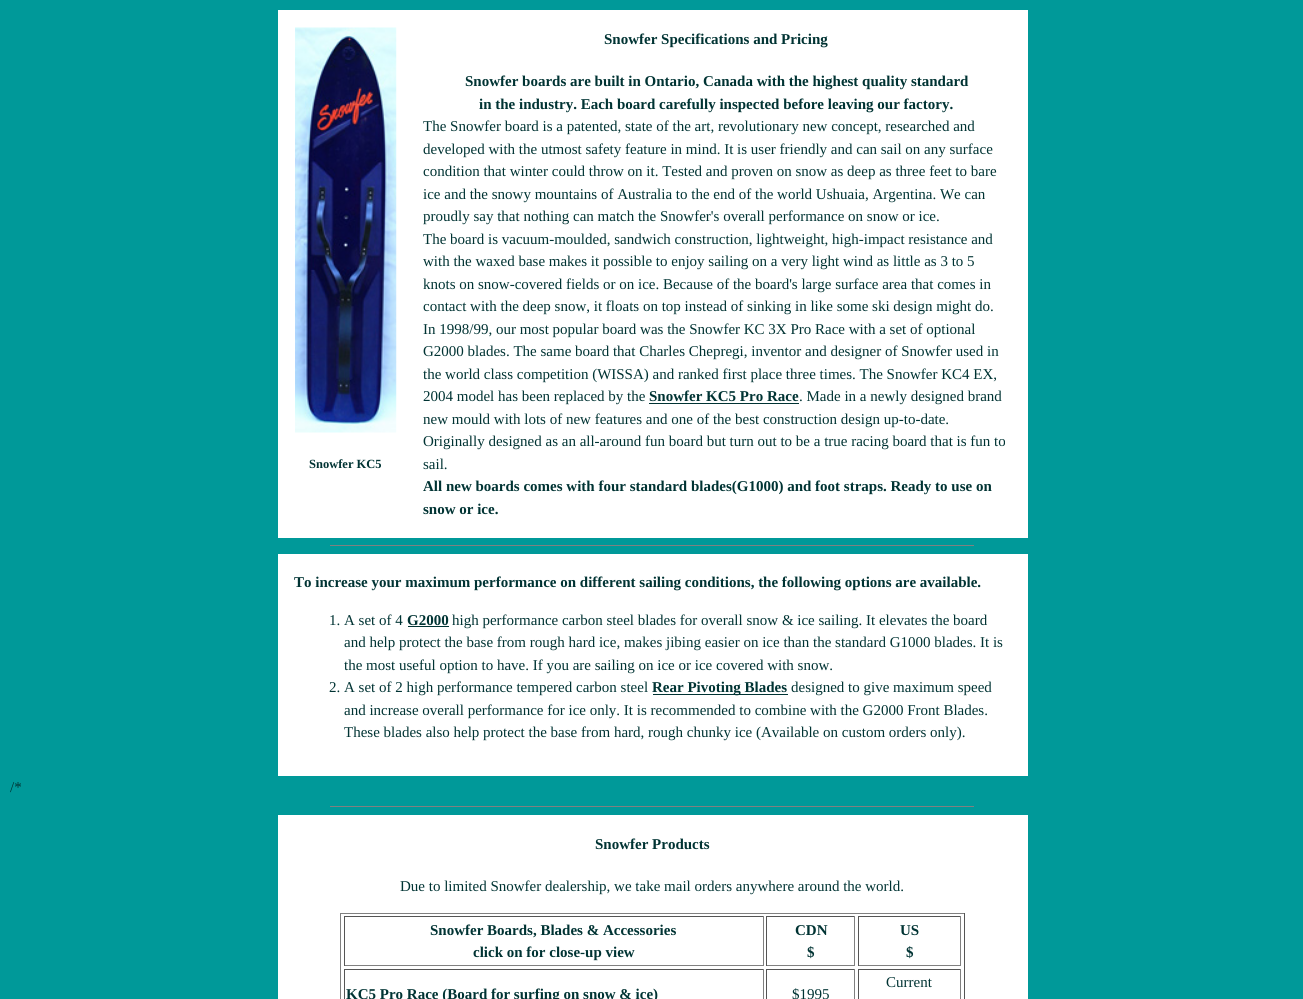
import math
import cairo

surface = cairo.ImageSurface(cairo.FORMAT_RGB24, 1303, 999)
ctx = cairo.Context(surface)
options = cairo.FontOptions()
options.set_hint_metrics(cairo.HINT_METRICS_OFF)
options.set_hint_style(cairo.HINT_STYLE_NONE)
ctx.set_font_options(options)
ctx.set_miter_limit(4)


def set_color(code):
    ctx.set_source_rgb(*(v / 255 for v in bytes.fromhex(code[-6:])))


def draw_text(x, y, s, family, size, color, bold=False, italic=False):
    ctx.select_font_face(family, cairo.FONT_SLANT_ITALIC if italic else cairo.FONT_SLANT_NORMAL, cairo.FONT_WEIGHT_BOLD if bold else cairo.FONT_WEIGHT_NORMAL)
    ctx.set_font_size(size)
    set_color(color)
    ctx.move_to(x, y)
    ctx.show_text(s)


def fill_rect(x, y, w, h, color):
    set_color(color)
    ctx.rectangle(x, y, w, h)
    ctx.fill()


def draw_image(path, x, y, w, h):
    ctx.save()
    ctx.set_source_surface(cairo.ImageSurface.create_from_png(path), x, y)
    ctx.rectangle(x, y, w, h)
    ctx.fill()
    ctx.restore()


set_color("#009999")
ctx.paint()
fill_rect(278, 10, 750, 528, "#ffffff")
draw_image("assets/img1.png", 295, 27, 102, 406)
draw_text(309, 468, "Snowfer KC5", "Liberation Serif", 12.5, "#003333", bold=True)
draw_text(604, 44, "Snowfer Specifications and Pricing", "Liberation Serif", 15, "#003333", bold=True)
draw_text(465, 86, "Snowfer boards are built in Ontario, Canada with the highest quality standard", "Liberation Serif", 15, "#003333", bold=True)
draw_text(479, 109, "in the industry. Each board carefully inspected before leaving our factory.", "Liberation Serif", 15, "#003333", bold=True)
draw_text(423, 131, "The Snowfer board is a patented, state of the art, revolutionary new concept, researched and", "Liberation Serif", 15, "#003333")
draw_text(423, 154, "developed with the utmost safety feature in mind. It is user friendly and can sail on any surface", "Liberation Serif", 15, "#003333")
draw_text(423, 176, "condition that winter could throw on it. Tested and proven on snow as deep as three feet to bare", "Liberation Serif", 15, "#003333")
draw_text(423, 199, "ice and the snowy mountains of Australia to the end of the world Ushuaia, Argentina. We can", "Liberation Serif", 15, "#003333")
draw_text(423, 221, "proudly say that nothing can match the Snowfer's overall performance on snow or ice.", "Liberation Serif", 15, "#003333")
draw_text(423, 244, "The board is vacuum-moulded, sandwich construction, lightweight, high-impact resistance and", "Liberation Serif", 15, "#003333")
draw_text(423, 266, "with the waxed base makes it possible to enjoy sailing on a very light wind as little as 3 to 5", "Liberation Serif", 15, "#003333")
draw_text(423, 289, "knots on snow-covered fields or on ice. Because of the board's large surface area that comes in", "Liberation Serif", 15, "#003333")
draw_text(423, 311, "contact with the deep snow, it floats on top instead of sinking in like some ski design might do.", "Liberation Serif", 15, "#003333")
draw_text(423, 334, "In 1998/99, our most popular board was the Snowfer KC 3X Pro Race with a set of optional", "Liberation Serif", 15, "#003333")
draw_text(423, 356, "G2000 blades. The same board that Charles Chepregi, inventor and designer of Snowfer used in", "Liberation Serif", 15, "#003333")
draw_text(423, 379, "the world class competition (WISSA) and ranked first place three times. The Snowfer KC4 EX,", "Liberation Serif", 15, "#003333")
draw_text(423, 401, "2004 model has been replaced by the", "Liberation Serif", 15, "#003333")
draw_text(649, 401, "Snowfer KC5 Pro Race", "Liberation Serif", 15, "#003333", bold=True)
fill_rect(649, 403, 150, 1, "#003333")
draw_text(799, 401, ". Made in a newly designed brand", "Liberation Serif", 15, "#003333")
draw_text(423, 424, "new mould with lots of new features and one of the best construction design up-to-date.", "Liberation Serif", 15, "#003333")
draw_text(423, 446, "Originally designed as an all-around fun board but turn out to be a true racing board that is fun to", "Liberation Serif", 15, "#003333")
draw_text(423, 469, "sail.", "Liberation Serif", 15, "#003333")
draw_text(423, 491, "All new boards comes with four standard blades(G1000) and foot straps. Ready to use on", "Liberation Serif", 15, "#003333", bold=True)
draw_text(423, 514, "snow or ice.", "Liberation Serif", 15, "#003333", bold=True)
fill_rect(330, 545, 644, 1, "#808080")
fill_rect(278, 554, 750, 222, "#ffffff")
draw_text(294, 587, "To increase your maximum performance on different sailing conditions, the following options are available.", "Liberation Serif", 15, "#003333", bold=True)
draw_text(329, 625, "1. A set of 4", "Liberation Serif", 15, "#003333")
draw_text(407, 625, "G2000", "Liberation Serif", 15, "#003333", bold=True)
fill_rect(408, 626, 41, 1, "#003333")
draw_text(452, 625, "high performance carbon steel blades for overall snow & ice sailing. It elevates the board", "Liberation Serif", 15, "#003333")
draw_text(344, 647, "and help protect the base from rough hard ice, makes jibing easier on ice than the standard G1000 blades. It is", "Liberation Serif", 15, "#003333")
draw_text(344, 670, "the most useful option to have. If you are sailing on ice or ice covered with snow.", "Liberation Serif", 15, "#003333")
draw_text(329, 692, "2. A set of 2 high performance tempered carbon steel", "Liberation Serif", 15, "#003333")
fill_rect(653, 694, 135, 1, "#003333")
draw_text(652, 692, "Rear Pivoting Blades", "Liberation Serif", 15, "#003333", bold=True)
draw_text(791, 692, "designed to give maximum speed", "Liberation Serif", 15, "#003333")
draw_text(344, 715, "and increase overall performance for ice only. It is recommended to combine with the G2000 Front Blades.", "Liberation Serif", 15, "#003333")
draw_text(344, 737, "These blades also help protect the base from hard, rough chunky ice (Available on custom orders only).", "Liberation Serif", 15, "#003333")
draw_text(10, 792, "/*", "Liberation Serif", 15, "#003333")
fill_rect(330, 806, 644, 1, "#808080")
fill_rect(278, 815, 750, 184, "#ffffff")
draw_text(595, 849, "Snowfer Products", "Liberation Serif", 15, "#003333", bold=True)
draw_text(400, 891, "Due to limited Snowfer dealership, we take mail orders anywhere around the world.", "Liberation Serif", 15, "#003333")
fill_rect(340, 913, 625, 1, "#808080")
fill_rect(964, 913, 1, 86, "#555555")
fill_rect(340, 913, 1, 86, "#808080")
fill_rect(344, 916, 420, 1, "#555555")
fill_rect(763, 916, 1, 50, "#808080")
fill_rect(344, 965, 420, 1, "#808080")
fill_rect(344, 916, 1, 50, "#555555")
draw_text(430, 935, "Snowfer Boards, Blades & Accessories", "Liberation Serif", 15, "#003333", bold=True)
draw_text(473, 957, "click on for close-up view", "Liberation Serif", 15, "#003333", bold=True)
fill_rect(766, 916, 89, 1, "#555555")
fill_rect(854, 916, 1, 50, "#808080")
fill_rect(766, 965, 89, 1, "#808080")
fill_rect(766, 916, 1, 50, "#555555")
draw_text(795, 935, "CDN", "Liberation Serif", 15, "#003333", bold=True)
draw_text(807, 957, "$", "Liberation Serif", 15, "#003333", bold=True)
fill_rect(858, 916, 103, 1, "#555555")
fill_rect(960, 916, 1, 50, "#808080")
fill_rect(858, 965, 103, 1, "#808080")
fill_rect(858, 916, 1, 50, "#555555")
draw_text(900, 935, "US", "Liberation Serif", 15, "#003333", bold=True)
draw_text(906, 957, "$", "Liberation Serif", 15, "#003333", bold=True)
fill_rect(858, 969, 103, 1, "#555555")
fill_rect(960, 969, 1, 30, "#808080")
fill_rect(858, 969, 1, 30, "#555555")
draw_text(886, 987, "Current", "Liberation Serif", 15, "#003333")
fill_rect(344, 969, 420, 1, "#555555")
fill_rect(763, 969, 1, 30, "#808080")
fill_rect(344, 969, 1, 30, "#555555")
draw_text(346, 999, "KC5 Pro Race (Board for surfing on snow & ice)", "Liberation Serif", 15, "#003333", bold=True)
fill_rect(766, 969, 89, 1, "#555555")
fill_rect(854, 969, 1, 30, "#808080")
fill_rect(766, 969, 1, 30, "#555555")
draw_text(792, 999, "$1995", "Liberation Serif", 15, "#003333")
surface.write_to_png("output.png")
